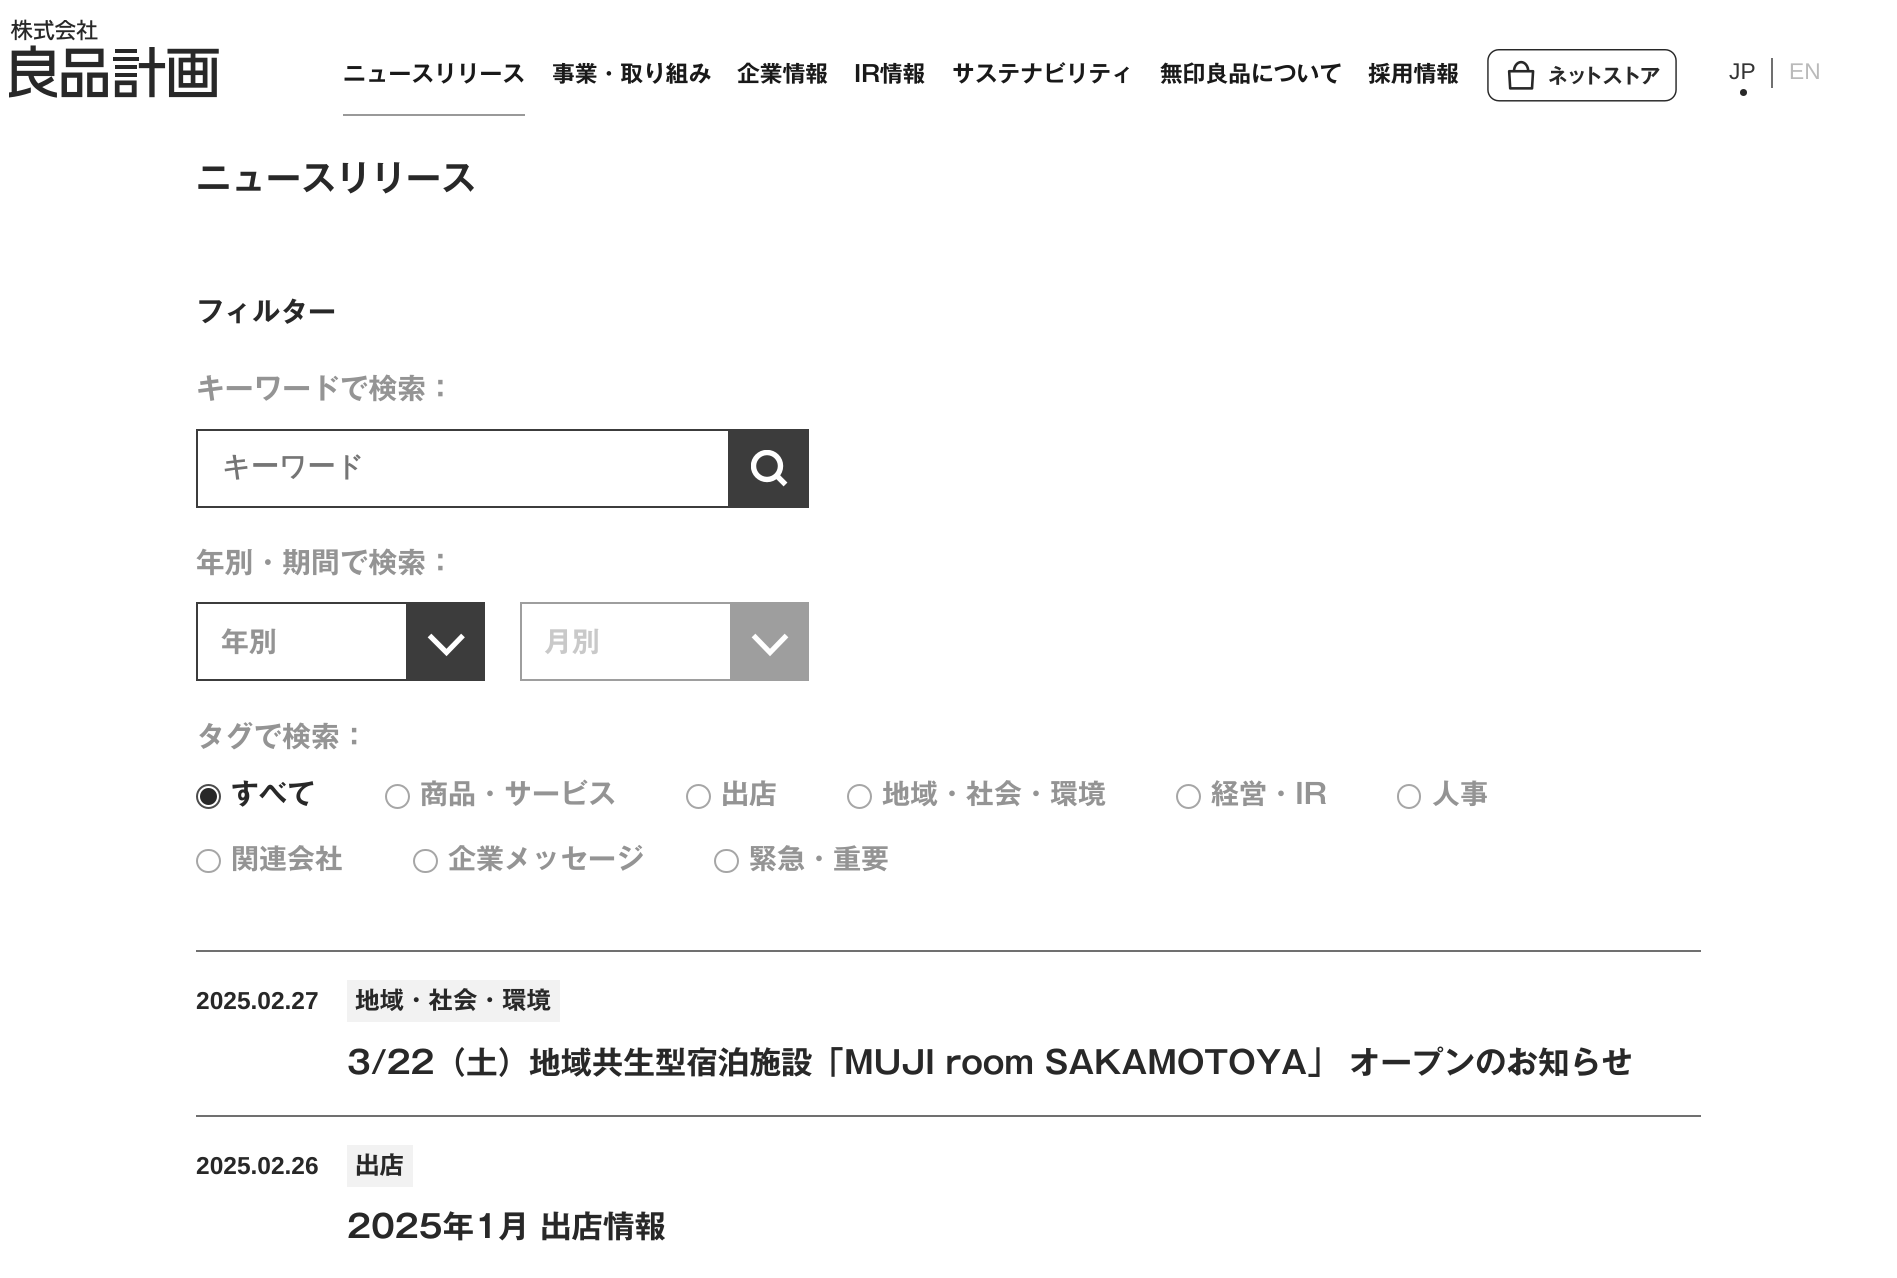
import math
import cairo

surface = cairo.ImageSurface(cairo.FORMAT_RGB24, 1897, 1278)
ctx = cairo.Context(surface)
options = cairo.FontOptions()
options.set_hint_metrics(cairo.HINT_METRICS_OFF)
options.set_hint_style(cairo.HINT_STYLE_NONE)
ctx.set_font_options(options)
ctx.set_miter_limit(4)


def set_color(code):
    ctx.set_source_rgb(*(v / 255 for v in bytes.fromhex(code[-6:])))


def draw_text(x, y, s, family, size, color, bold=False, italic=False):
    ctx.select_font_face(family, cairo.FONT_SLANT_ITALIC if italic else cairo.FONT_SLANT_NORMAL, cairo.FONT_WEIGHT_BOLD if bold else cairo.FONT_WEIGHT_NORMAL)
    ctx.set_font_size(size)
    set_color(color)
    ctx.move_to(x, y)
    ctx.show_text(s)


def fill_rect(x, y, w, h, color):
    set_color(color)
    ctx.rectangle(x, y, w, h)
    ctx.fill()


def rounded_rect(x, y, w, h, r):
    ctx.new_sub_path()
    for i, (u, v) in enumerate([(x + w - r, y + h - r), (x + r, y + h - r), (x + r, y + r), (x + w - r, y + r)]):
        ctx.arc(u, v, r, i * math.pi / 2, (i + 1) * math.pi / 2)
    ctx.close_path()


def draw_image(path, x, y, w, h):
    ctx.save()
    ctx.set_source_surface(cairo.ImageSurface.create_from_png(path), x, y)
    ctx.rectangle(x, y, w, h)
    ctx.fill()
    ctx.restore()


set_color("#ffffff")
ctx.paint()
draw_image("assets/img1.png", 9, 19, 210, 79)
fill_rect(343, 114, 182, 2, "#999999")
draw_text(343, 82, "ニュースリリース", "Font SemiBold", 22.75, "#191919")
draw_text(552, 82, "事業・取り組み", "Font SemiBold", 22.75, "#191919")
draw_text(737, 82, "企業情報", "Font SemiBold", 22.75, "#191919")
draw_text(854, 82, "IR情報", "Font SemiBold", 22.75, "#191919")
draw_text(952, 82, "サステナビリティ", "Font SemiBold", 22.75, "#191919")
draw_text(1160, 82, "無印良品について", "Font SemiBold", 22.75, "#191919")
draw_text(1368, 82, "採用情報", "Font SemiBold", 22.75, "#191919")
draw_image("assets/img2.png", 1487, 49, 190, 53)
draw_text(1729, 79, "JP", "Liberation Sans", 22.75, "#333333")
set_color("#282828")
ctx.new_path()
ctx.arc(1743.5, 92.5, 3.5, 0, 2 * math.pi)
ctx.fill()
fill_rect(1771, 58, 2, 30, "#707070")
draw_text(1789, 79, "EN", "Liberation Sans", 22.75, "#bababa")
draw_text(196, 191, "ニュースリリース", "Font SemiBold", 35, "#282828")
draw_text(196, 322, "フィルター", "Font SemiBold", 28, "#282828")
draw_text(196, 399, "キーワードで検索：", "Font SemiBold", 28.75, "#949494")
ctx.rectangle(197, 430, 532, 77)
set_color("#3c3c3c")
ctx.stroke()
draw_text(222, 476, "キーワード", "WenQuanYi Zen Hei", 28, "#757575", bold=True)
fill_rect(730, 429, 79, 79, "#3c3c3c")
ctx.save()
ctx.rectangle(751, 450, 37, 37)
ctx.clip()
ctx.arc(767, 466, 13.5, 0, 2 * math.pi)
set_color("#ffffff")
ctx.set_line_width(5.4)
ctx.stroke()
ctx.restore()
ctx.new_path()
ctx.move_to(777, 476)
ctx.line_to(785.5, 484.5)
set_color("#ffffff")
ctx.set_line_width(5.4)
ctx.stroke()
draw_text(196, 573, "年別・期間で検索：", "Font SemiBold", 28.75, "#949494")
ctx.rectangle(197, 603, 287, 77)
set_color("#3c3c3c")
ctx.set_line_width(2)
ctx.stroke()
draw_text(221, 652, "年別", "Font SemiBold", 28, "#949494")
fill_rect(406, 604, 77, 75, "#3c3c3c")
ctx.new_path()
ctx.move_to(463, 635.5)
ctx.line_to(446.5, 652.5)
ctx.line_to(429.5, 635.5)
set_color("#ffffff")
ctx.set_line_width(5.2)
ctx.stroke()
ctx.rectangle(521, 603, 287, 77)
set_color("#9e9e9e")
ctx.set_line_width(2)
ctx.stroke()
draw_text(544, 652, "月別", "Font SemiBold", 28, "#c9c9c9")
fill_rect(730, 604, 77, 75, "#9e9e9e")
ctx.new_path()
ctx.move_to(786.5, 635.5)
ctx.line_to(770, 652.5)
ctx.line_to(753.5, 635.5)
set_color("#ffffff")
ctx.set_line_width(5.2)
ctx.stroke()
draw_text(196, 747, "タグで検索：", "Font SemiBold", 28.75, "#949494")
ctx.new_path()
ctx.arc(208.5, 796.5, 11.5, 0, 2 * math.pi)
set_color("#4c4c4c")
ctx.set_line_width(2)
ctx.stroke()
draw_text(231, 804, "すべて", "Font SemiBold", 28, "#282828")
ctx.new_path()
ctx.arc(208.5, 796.5, 8.5, 0, 2 * math.pi)
ctx.fill()
ctx.arc(397.5, 796.5, 11.5, 0, 2 * math.pi)
set_color("#a6a6a6")
ctx.stroke()
draw_text(420, 804, "商品・サービス", "Font SemiBold", 28, "#949494")
ctx.new_path()
ctx.arc(698.5, 796.5, 11.5, 0, 2 * math.pi)
set_color("#a6a6a6")
ctx.stroke()
draw_text(721, 804, "出店", "Font SemiBold", 28, "#949494")
ctx.new_path()
ctx.arc(859.5, 796.5, 11.5, 0, 2 * math.pi)
set_color("#a6a6a6")
ctx.stroke()
draw_text(882, 804, "地域・社会・環境", "Font SemiBold", 28, "#949494")
ctx.new_path()
ctx.arc(1188.5, 796.5, 11.5, 0, 2 * math.pi)
set_color("#a6a6a6")
ctx.stroke()
draw_text(1211, 804, "経営・IR", "Font SemiBold", 28, "#949494")
rounded_rect(1398, 785, 22, 23, 11)
set_color("#a6a6a6")
ctx.stroke()
draw_text(1432, 804, "人事", "Font SemiBold", 28, "#949494")
rounded_rect(197, 850, 23, 22, 11)
set_color("#a6a6a6")
ctx.stroke()
draw_text(231, 869, "関連会社", "Font SemiBold", 28, "#949494")
rounded_rect(414, 850, 23, 22, 11)
set_color("#a6a6a6")
ctx.stroke()
draw_text(448, 869, "企業メッセージ", "Font SemiBold", 28, "#949494")
rounded_rect(715, 850, 23, 22, 11)
set_color("#a6a6a6")
ctx.stroke()
draw_text(749, 869, "緊急・重要", "Font SemiBold", 28, "#949494")
fill_rect(196, 950, 1505, 2, "#707070")
fill_rect(196, 1115, 1505, 2, "#707070")
draw_text(196, 1009, "2025.02.27", "Liberation Sans", 24.5, "#282828", bold=True)
fill_rect(347, 980, 213, 42, "#f2f2f2")
draw_text(355, 1009, "地域・社会・環境", "Font SemiBold", 24.5, "#282828")
draw_text(347, 1074, "3/22（土）地域共生型宿泊施設「MUJI room SAKAMOTOYA」 オープンのお知らせ", "Font SemiBold", 31.5, "#282828")
draw_text(196, 1174, "2025.02.26", "Liberation Sans", 24.5, "#282828", bold=True)
fill_rect(347, 1145, 66, 42, "#f2f2f2")
draw_text(355, 1174, "出店", "Font SemiBold", 24.5, "#282828")
draw_text(347, 1238, "2025年1月 出店情報", "Font SemiBold", 31.5, "#282828")
surface.write_to_png("output.png")
